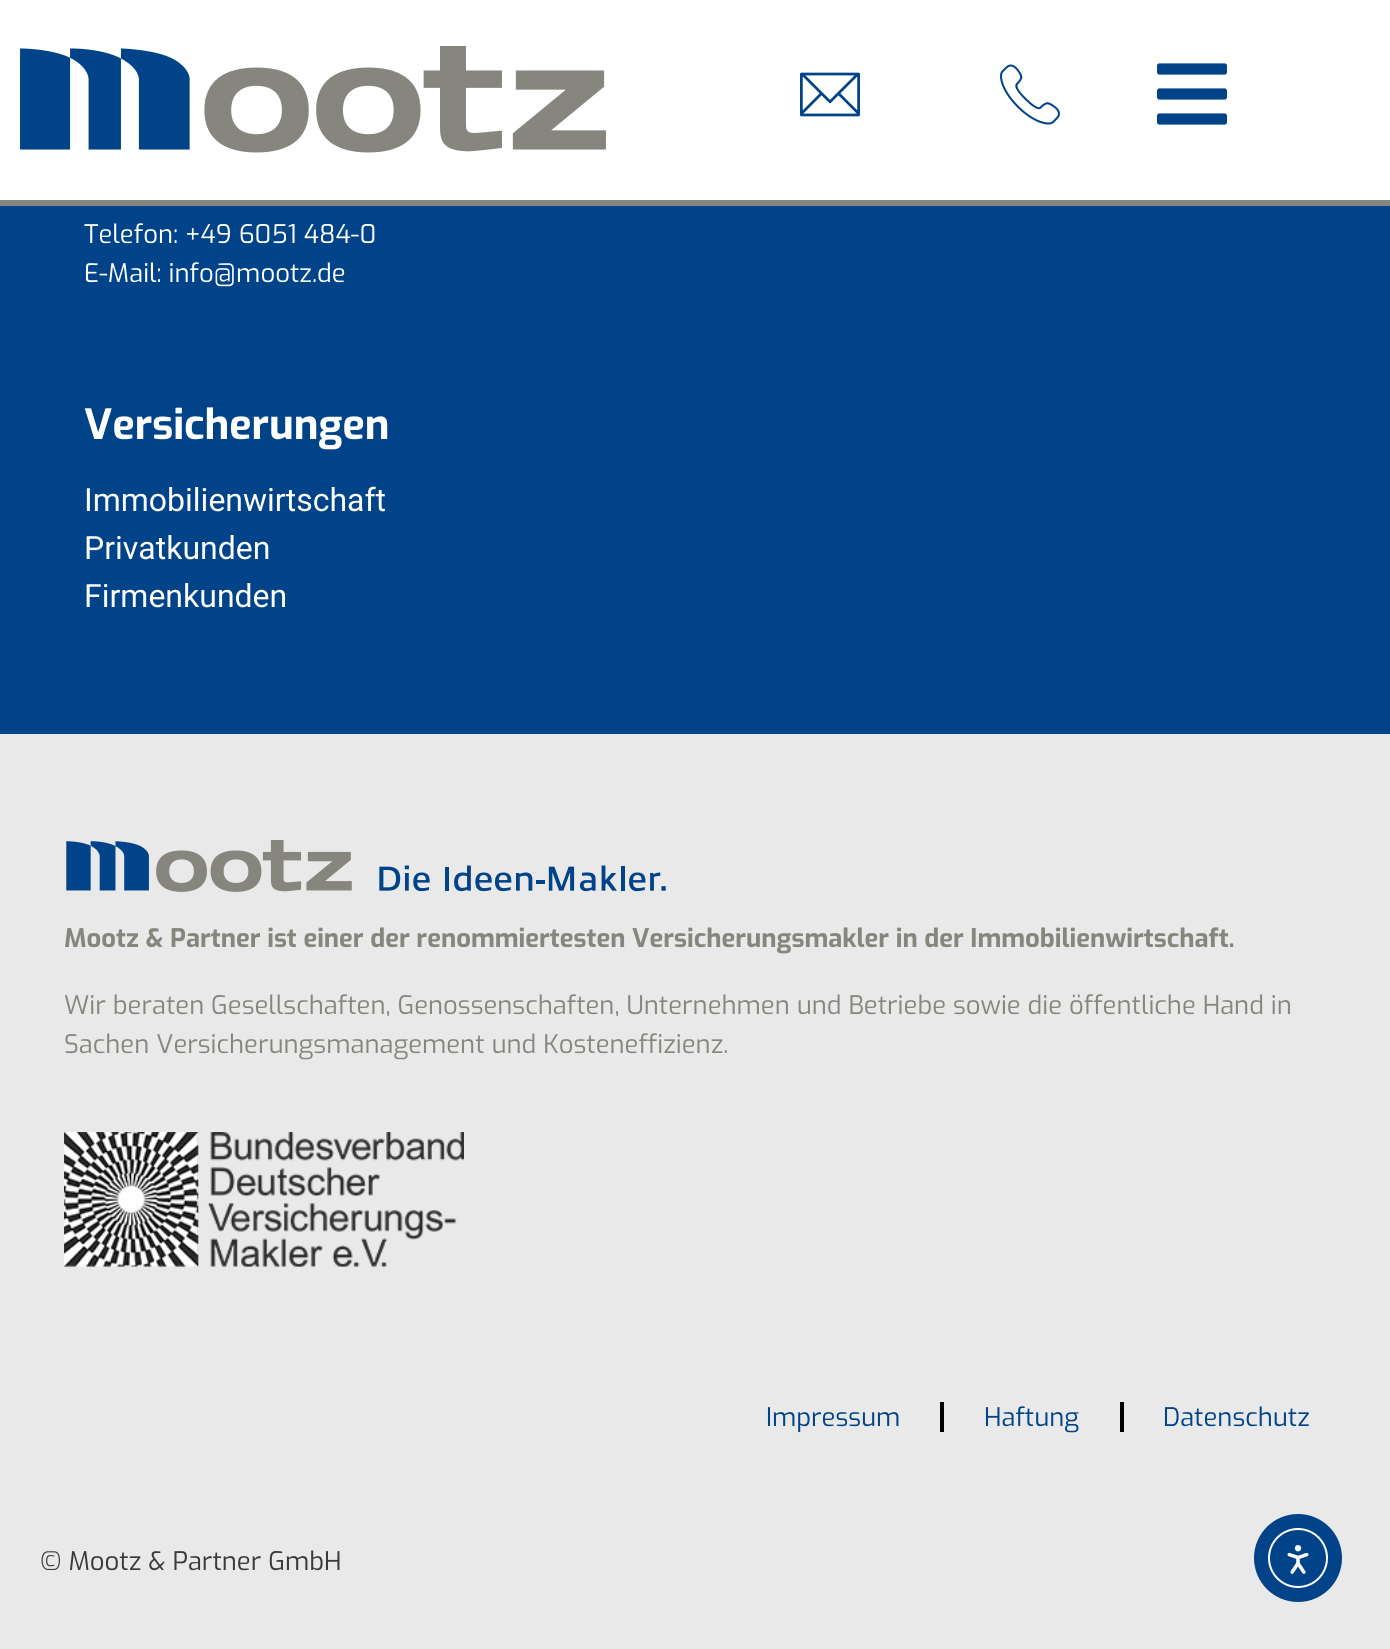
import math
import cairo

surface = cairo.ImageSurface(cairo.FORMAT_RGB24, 1390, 1649)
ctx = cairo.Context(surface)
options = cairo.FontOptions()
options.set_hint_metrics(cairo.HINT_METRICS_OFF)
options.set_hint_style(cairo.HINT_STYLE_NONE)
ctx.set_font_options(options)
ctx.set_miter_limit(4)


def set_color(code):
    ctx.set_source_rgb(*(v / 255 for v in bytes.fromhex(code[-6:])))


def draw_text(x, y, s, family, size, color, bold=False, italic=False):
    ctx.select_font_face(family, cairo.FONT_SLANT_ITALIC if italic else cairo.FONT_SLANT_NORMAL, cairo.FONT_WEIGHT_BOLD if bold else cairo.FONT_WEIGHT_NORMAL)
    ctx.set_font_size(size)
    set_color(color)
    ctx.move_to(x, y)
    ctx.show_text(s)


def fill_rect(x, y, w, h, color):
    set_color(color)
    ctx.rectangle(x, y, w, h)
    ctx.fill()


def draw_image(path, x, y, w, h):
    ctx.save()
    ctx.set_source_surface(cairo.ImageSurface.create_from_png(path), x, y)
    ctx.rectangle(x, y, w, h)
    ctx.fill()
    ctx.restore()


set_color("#e9e9e9")
ctx.paint()
fill_rect(0, 200, 1390, 6, "#87867e")
fill_rect(0, 0, 1390, 200, "#ffffff")
draw_image("assets/img1.png", 20, 46, 586, 107)
draw_image("assets/img2.png", 800, 72, 60, 45)
draw_image("assets/img3.png", 1000, 64, 60, 61)
draw_image("assets/img4.png", 1157, 63, 70, 62)
fill_rect(0, 206, 1390, 528, "#004388")
draw_text(84, 243, "Telefon: +49 6051 484-0", "Exo", 25.6, "#ffffff")
draw_text(84, 282, "E-Mail: info@mootz.de", "Exo", 25.6, "#ffffff")
draw_text(84, 439, "Versicherungen", "Exo", 41.5, "#ffffff", bold=True)
draw_text(84, 511, "Immobilienwirtschaft", "Roboto", 32, "#ffffff")
draw_text(84, 559, "Privatkunden", "Roboto", 32, "#ffffff")
draw_text(84, 607, "Firmenkunden", "Roboto", 32, "#ffffff")
draw_image("assets/img5.png", 66, 840, 600, 52)
draw_text(64, 947, "Mootz & Partner ist einer der renommiertesten Versicherungsmakler in der Immobilienwirtschaft.", "Exo", 25.6, "#87867e", bold=True)
draw_text(64, 1014, "Wir beraten Gesellschaften, Genossenschaften, Unternehmen und Betriebe sowie die öffentliche Hand in", "Exo", 25.6, "#87867e")
draw_text(64, 1053, "Sachen Versicherungsmanagement und Kosteneffizienz.", "Exo", 25.6, "#87867e")
draw_image("assets/img6.png", 64, 1132, 400, 135)
draw_text(766, 1426, "Impressum", "Exo", 25.6, "#004388")
fill_rect(940, 1402, 4, 30, "#000000")
draw_text(984, 1426, "Haftung", "Exo", 25.6, "#004388")
fill_rect(1120, 1402, 4, 30, "#000000")
draw_text(1163, 1426, "Datenschutz", "Exo", 25.6, "#004388")
draw_text(40, 1570, "© Mootz & Partner GmbH", "Exo", 25.6, "#3a3a3a")
set_color("#004388")
ctx.new_path()
ctx.arc(1298, 1558, 44, 0, 2 * math.pi)
ctx.fill()
ctx.arc(1298, 1558, 29, 0, 2 * math.pi)
set_color("#ffffff")
ctx.stroke()
draw_image("assets/img7.png", 1287, 1545, 22, 29)
surface.write_to_png("output.png")
